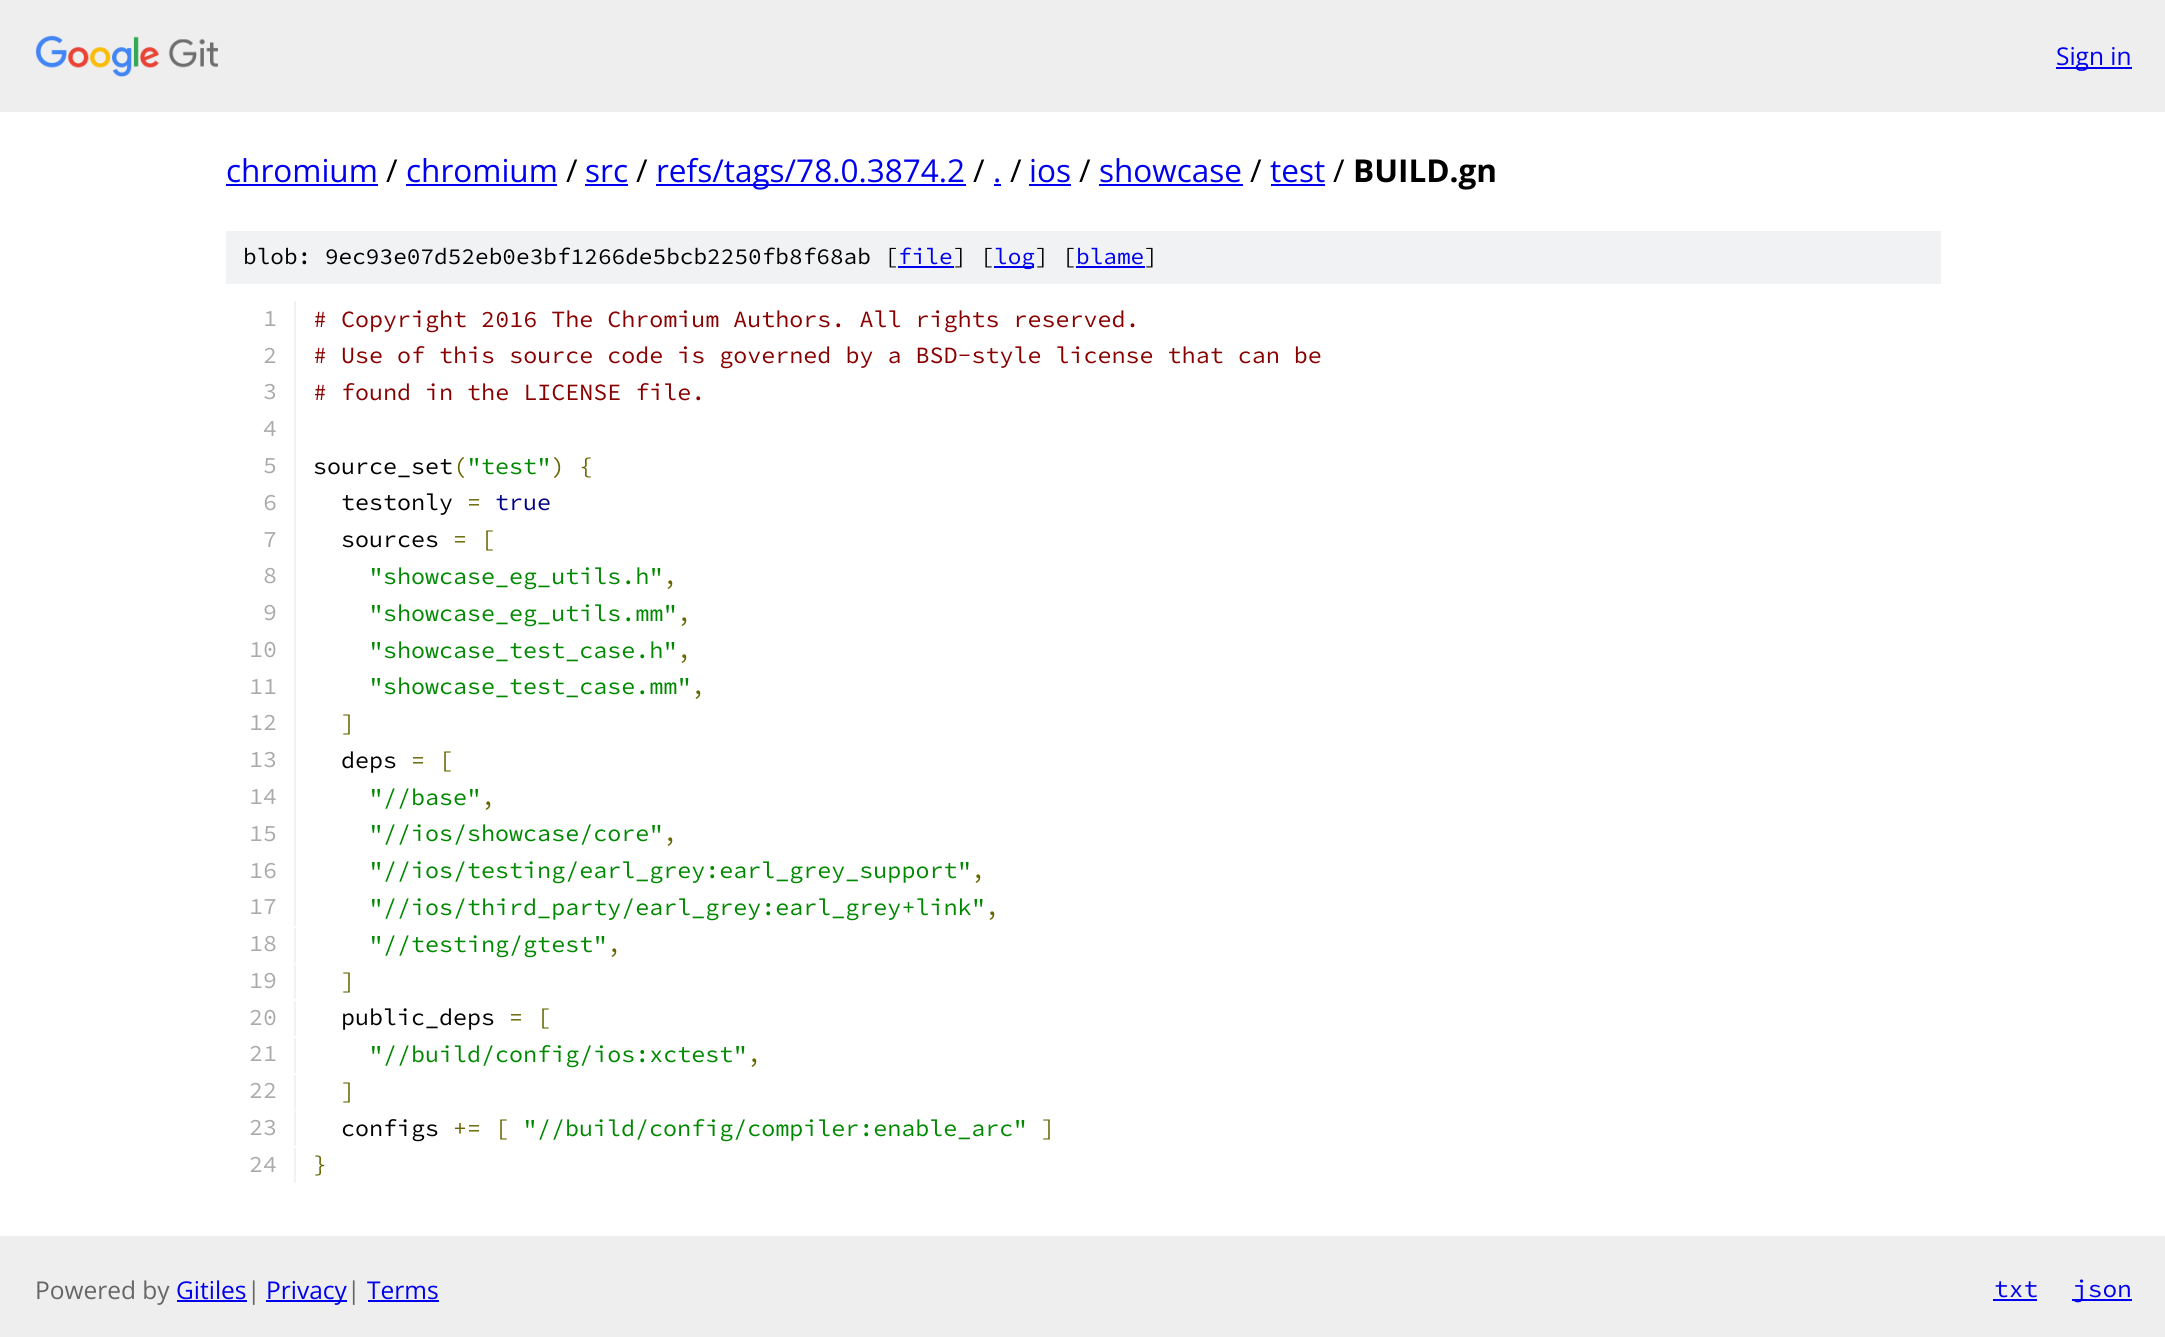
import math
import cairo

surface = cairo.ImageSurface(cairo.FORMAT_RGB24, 2165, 1337)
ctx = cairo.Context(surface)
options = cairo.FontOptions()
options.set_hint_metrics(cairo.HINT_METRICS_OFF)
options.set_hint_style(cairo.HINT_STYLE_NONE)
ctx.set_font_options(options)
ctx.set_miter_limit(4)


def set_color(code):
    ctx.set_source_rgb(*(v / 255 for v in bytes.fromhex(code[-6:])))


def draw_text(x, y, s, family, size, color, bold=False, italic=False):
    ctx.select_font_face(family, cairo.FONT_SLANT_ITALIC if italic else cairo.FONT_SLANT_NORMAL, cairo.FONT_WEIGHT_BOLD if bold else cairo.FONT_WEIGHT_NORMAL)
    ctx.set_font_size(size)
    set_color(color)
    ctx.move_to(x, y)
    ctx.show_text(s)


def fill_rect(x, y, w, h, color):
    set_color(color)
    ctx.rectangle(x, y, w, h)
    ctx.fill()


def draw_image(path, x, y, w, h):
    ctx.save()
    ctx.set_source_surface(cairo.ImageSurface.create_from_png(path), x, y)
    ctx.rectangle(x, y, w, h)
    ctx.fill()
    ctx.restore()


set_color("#ffffff")
ctx.paint()
fill_rect(0, 0, 2165, 112, "#eeeeee")
draw_image("assets/img1.png", 35, 35, 183, 42)
fill_rect(2056, 67, 76, 2, "#0000ee")
draw_text(2056, 65, "Sign in", "Open Sans", 24.5, "#0000ee")
draw_text(226, 182, "chromium", "Open Sans", 31.5, "#0000ee")
fill_rect(226, 184, 152, 2, "#0000ee")
draw_text(386, 182, "/", "Open Sans", 31.5, "#000000")
draw_text(406, 182, "chromium", "Open Sans", 31.5, "#0000ee")
fill_rect(406, 184, 151, 2, "#0000ee")
draw_text(566, 182, "/", "Open Sans", 31.5, "#000000")
draw_text(585, 182, "src", "Open Sans", 31.5, "#0000ee")
fill_rect(585, 184, 43, 2, "#0000ee")
draw_text(636, 182, "/", "Open Sans", 31.5, "#000000")
fill_rect(656, 184, 310, 2, "#0000ee")
draw_text(656, 182, "refs/tags/78.0.3874.2", "Open Sans", 31.5, "#0000ee")
draw_text(973, 182, "/", "Open Sans", 31.5, "#000000")
draw_text(993, 182, ".", "Open Sans", 31.5, "#0000ee")
fill_rect(994, 184, 7, 2, "#0000ee")
draw_text(1010, 182, "/", "Open Sans", 31.5, "#000000")
draw_text(1029, 182, "ios", "Open Sans", 31.5, "#0000ee")
fill_rect(1029, 184, 42, 2, "#0000ee")
draw_text(1079, 182, "/", "Open Sans", 31.5, "#000000")
draw_text(1099, 182, "showcase", "Open Sans", 31.5, "#0000ee")
fill_rect(1099, 184, 144, 2, "#0000ee")
draw_text(1250, 182, "/", "Open Sans", 31.5, "#000000")
draw_text(1270, 182, "test", "Open Sans", 31.5, "#0000ee")
fill_rect(1271, 184, 54, 2, "#0000ee")
draw_text(1333, 182, "/", "Open Sans", 31.5, "#000000")
draw_text(1353, 182, "BUILD.gn", "Open Sans", 31.5, "#000000", bold=True)
fill_rect(226, 231, 1715, 53, "#f1f2f3")
draw_text(243, 264, "blob: 9ec93e07d52eb0e3bf1266de5bcb2250fb8f68ab [", "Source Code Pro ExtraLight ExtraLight", 22.75, "#000000")
draw_text(898, 264, "file", "Source Code Pro ExtraLight ExtraLight", 22.75, "#0000ee")
fill_rect(898, 266, 56, 2, "#0000ee")
draw_text(953, 264, "] [", "Source Code Pro ExtraLight ExtraLight", 22.75, "#000000")
fill_rect(994, 266, 40, 2, "#0000ee")
draw_text(994, 264, "log", "Source Code Pro ExtraLight ExtraLight", 22.75, "#0000ee")
draw_text(1035, 264, "] [", "Source Code Pro ExtraLight ExtraLight", 22.75, "#000000")
draw_text(1076, 264, "blame", "Source Code Pro ExtraLight ExtraLight", 22.75, "#0000ee")
fill_rect(1076, 266, 69, 2, "#0000ee")
draw_text(1144, 264, "]", "Source Code Pro ExtraLight ExtraLight", 22.75, "#000000")
fill_rect(294, 301, 2, 625, "#f1f2f3")
draw_text(263, 326, "1", "Source Code Pro ExtraLight ExtraLight", 23.35, "#aaaaaa")
draw_text(313, 327, "# Copyright 2016 The Chromium Authors. All rights reserved.", "Source Code Pro ExtraLight ExtraLight", 23.35, "#880000")
draw_text(263, 363, "2", "Source Code Pro ExtraLight ExtraLight", 23.35, "#aaaaaa")
draw_text(313, 363, "# Use of this source code is governed by a BSD-style license that can be", "Source Code Pro ExtraLight ExtraLight", 23.35, "#880000")
draw_text(263, 399, "3", "Source Code Pro ExtraLight ExtraLight", 23.35, "#aaaaaa")
draw_text(313, 400, "# found in the LICENSE file.", "Source Code Pro ExtraLight ExtraLight", 23.35, "#880000")
draw_text(263, 436, "4", "Source Code Pro ExtraLight ExtraLight", 23.35, "#aaaaaa")
draw_text(263, 473, "5", "Source Code Pro ExtraLight ExtraLight", 23.35, "#aaaaaa")
draw_text(313, 474, "source_set", "Source Code Pro ExtraLight ExtraLight", 23.35, "#000000")
draw_text(453, 474, "(", "Source Code Pro ExtraLight ExtraLight", 23.35, "#666600")
draw_text(467, 474, "\"test\"", "Source Code Pro ExtraLight ExtraLight", 23.35, "#008800")
draw_text(551, 474, ") {", "Source Code Pro ExtraLight ExtraLight", 23.35, "#666600")
draw_text(263, 510, "6", "Source Code Pro ExtraLight ExtraLight", 23.35, "#aaaaaa")
draw_text(341, 510, "testonly", "Source Code Pro ExtraLight ExtraLight", 23.35, "#000000")
draw_text(467, 510, "=", "Source Code Pro ExtraLight ExtraLight", 23.35, "#666600")
draw_text(495, 510, "true", "Source Code Pro ExtraLight ExtraLight", 23.35, "#000088")
draw_text(263, 547, "7", "Source Code Pro ExtraLight ExtraLight", 23.35, "#aaaaaa")
draw_text(341, 547, "sources", "Source Code Pro ExtraLight ExtraLight", 23.35, "#000000")
draw_text(453, 547, "= [", "Source Code Pro ExtraLight ExtraLight", 23.35, "#666600")
draw_text(263, 583, "8", "Source Code Pro ExtraLight ExtraLight", 23.35, "#aaaaaa")
draw_text(369, 584, "\"showcase_eg_utils.h\"", "Source Code Pro ExtraLight ExtraLight", 23.35, "#008800")
draw_text(663, 584, ",", "Source Code Pro ExtraLight ExtraLight", 23.35, "#666600")
draw_text(263, 620, "9", "Source Code Pro ExtraLight ExtraLight", 23.35, "#aaaaaa")
draw_text(369, 621, "\"showcase_eg_utils.mm\"", "Source Code Pro ExtraLight ExtraLight", 23.35, "#008800")
draw_text(677, 621, ",", "Source Code Pro ExtraLight ExtraLight", 23.35, "#666600")
draw_text(249, 657, "10", "Source Code Pro ExtraLight ExtraLight", 23.35, "#aaaaaa")
draw_text(369, 658, "\"showcase_test_case.h\"", "Source Code Pro ExtraLight ExtraLight", 23.35, "#008800")
draw_text(677, 658, ",", "Source Code Pro ExtraLight ExtraLight", 23.35, "#666600")
draw_text(249, 694, "11", "Source Code Pro ExtraLight ExtraLight", 23.35, "#aaaaaa")
draw_text(369, 694, "\"showcase_test_case.mm\"", "Source Code Pro ExtraLight ExtraLight", 23.35, "#008800")
draw_text(691, 694, ",", "Source Code Pro ExtraLight ExtraLight", 23.35, "#666600")
draw_text(249, 730, "12", "Source Code Pro ExtraLight ExtraLight", 23.35, "#aaaaaa")
draw_text(341, 731, "]", "Source Code Pro ExtraLight ExtraLight", 23.35, "#666600")
draw_text(249, 767, "13", "Source Code Pro ExtraLight ExtraLight", 23.35, "#aaaaaa")
draw_text(341, 768, "deps", "Source Code Pro ExtraLight ExtraLight", 23.35, "#000000")
draw_text(411, 768, "= [", "Source Code Pro ExtraLight ExtraLight", 23.35, "#666600")
draw_text(249, 804, "14", "Source Code Pro ExtraLight ExtraLight", 23.35, "#aaaaaa")
draw_text(369, 805, "\"//base\"", "Source Code Pro ExtraLight ExtraLight", 23.35, "#008800")
draw_text(481, 805, ",", "Source Code Pro ExtraLight ExtraLight", 23.35, "#666600")
draw_text(249, 841, "15", "Source Code Pro ExtraLight ExtraLight", 23.35, "#aaaaaa")
draw_text(369, 841, "\"//ios/showcase/core\"", "Source Code Pro ExtraLight ExtraLight", 23.35, "#008800")
draw_text(663, 841, ",", "Source Code Pro ExtraLight ExtraLight", 23.35, "#666600")
draw_text(249, 878, "16", "Source Code Pro ExtraLight ExtraLight", 23.35, "#aaaaaa")
draw_text(369, 878, "\"//ios/testing/earl_grey:earl_grey_support\"", "Source Code Pro ExtraLight ExtraLight", 23.35, "#008800")
draw_text(971, 878, ",", "Source Code Pro ExtraLight ExtraLight", 23.35, "#666600")
draw_text(249, 914, "17", "Source Code Pro ExtraLight ExtraLight", 23.35, "#aaaaaa")
draw_text(369, 915, "\"//ios/third_party/earl_grey:earl_grey+link\"", "Source Code Pro ExtraLight ExtraLight", 23.35, "#008800")
draw_text(985, 915, ",", "Source Code Pro ExtraLight ExtraLight", 23.35, "#666600")
fill_rect(294, 928, 2, 35, "#f1f2f3")
draw_text(249, 951, "18", "Source Code Pro ExtraLight ExtraLight", 23.35, "#aaaaaa")
draw_text(369, 952, "\"//testing/gtest\"", "Source Code Pro ExtraLight ExtraLight", 23.35, "#008800")
draw_text(607, 952, ",", "Source Code Pro ExtraLight ExtraLight", 23.35, "#666600")
fill_rect(294, 964, 2, 35, "#f1f2f3")
draw_text(249, 988, "19", "Source Code Pro ExtraLight ExtraLight", 23.35, "#aaaaaa")
draw_text(341, 989, "]", "Source Code Pro ExtraLight ExtraLight", 23.35, "#666600")
fill_rect(294, 1001, 2, 35, "#f1f2f3")
draw_text(249, 1025, "20", "Source Code Pro ExtraLight ExtraLight", 23.35, "#aaaaaa")
draw_text(341, 1025, "public_deps", "Source Code Pro ExtraLight ExtraLight", 23.35, "#000000")
draw_text(509, 1025, "= [", "Source Code Pro ExtraLight ExtraLight", 23.35, "#666600")
fill_rect(294, 1038, 2, 35, "#f1f2f3")
draw_text(249, 1061, "21", "Source Code Pro ExtraLight ExtraLight", 23.35, "#aaaaaa")
draw_text(369, 1062, "\"//build/config/ios:xctest\"", "Source Code Pro ExtraLight ExtraLight", 23.35, "#008800")
draw_text(747, 1062, ",", "Source Code Pro ExtraLight ExtraLight", 23.35, "#666600")
fill_rect(294, 1075, 2, 35, "#f1f2f3")
draw_text(249, 1098, "22", "Source Code Pro ExtraLight ExtraLight", 23.35, "#aaaaaa")
draw_text(341, 1099, "]", "Source Code Pro ExtraLight ExtraLight", 23.35, "#666600")
fill_rect(294, 1111, 2, 35, "#f1f2f3")
draw_text(249, 1135, "23", "Source Code Pro ExtraLight ExtraLight", 23.35, "#aaaaaa")
draw_text(341, 1136, "configs", "Source Code Pro ExtraLight ExtraLight", 23.35, "#000000")
draw_text(453, 1136, "+= [", "Source Code Pro ExtraLight ExtraLight", 23.35, "#666600")
draw_text(523, 1136, "\"//build/config/compiler:enable_arc\"", "Source Code Pro ExtraLight ExtraLight", 23.35, "#008800")
draw_text(1041, 1136, "]", "Source Code Pro ExtraLight ExtraLight", 23.35, "#666600")
fill_rect(294, 1148, 2, 35, "#f1f2f3")
draw_text(249, 1172, "24", "Source Code Pro ExtraLight ExtraLight", 23.35, "#aaaaaa")
draw_text(313, 1172, "}", "Source Code Pro ExtraLight ExtraLight", 23.35, "#666600")
fill_rect(0, 1236, 2165, 101, "#eeeeee")
draw_text(35, 1299, "Powered by", "Open Sans", 24.5, "#666666")
draw_text(176, 1299, "Gitiles", "Open Sans", 24.5, "#0000ee")
fill_rect(177, 1300, 70, 2, "#0000ee")
draw_text(247, 1299, "|", "Open Sans", 24.5, "#666666")
fill_rect(266, 1300, 81, 2, "#0000ee")
draw_text(266, 1299, "Privacy", "Open Sans", 24.5, "#0000ee")
draw_text(347, 1299, "|", "Open Sans", 24.5, "#666666")
draw_text(367, 1299, "Terms", "Open Sans", 24.5, "#0000ee")
fill_rect(368, 1300, 71, 2, "#0000ee")
draw_text(1994, 1297, "txt", "Source Code Pro ExtraLight ExtraLight", 24.5, "#0000ee")
fill_rect(1993, 1299, 44, 2, "#0000ee")
fill_rect(2072, 1299, 60, 2, "#0000ee")
draw_text(2073, 1297, "json", "Source Code Pro ExtraLight ExtraLight", 24.5, "#0000ee")
surface.write_to_png("output.png")
